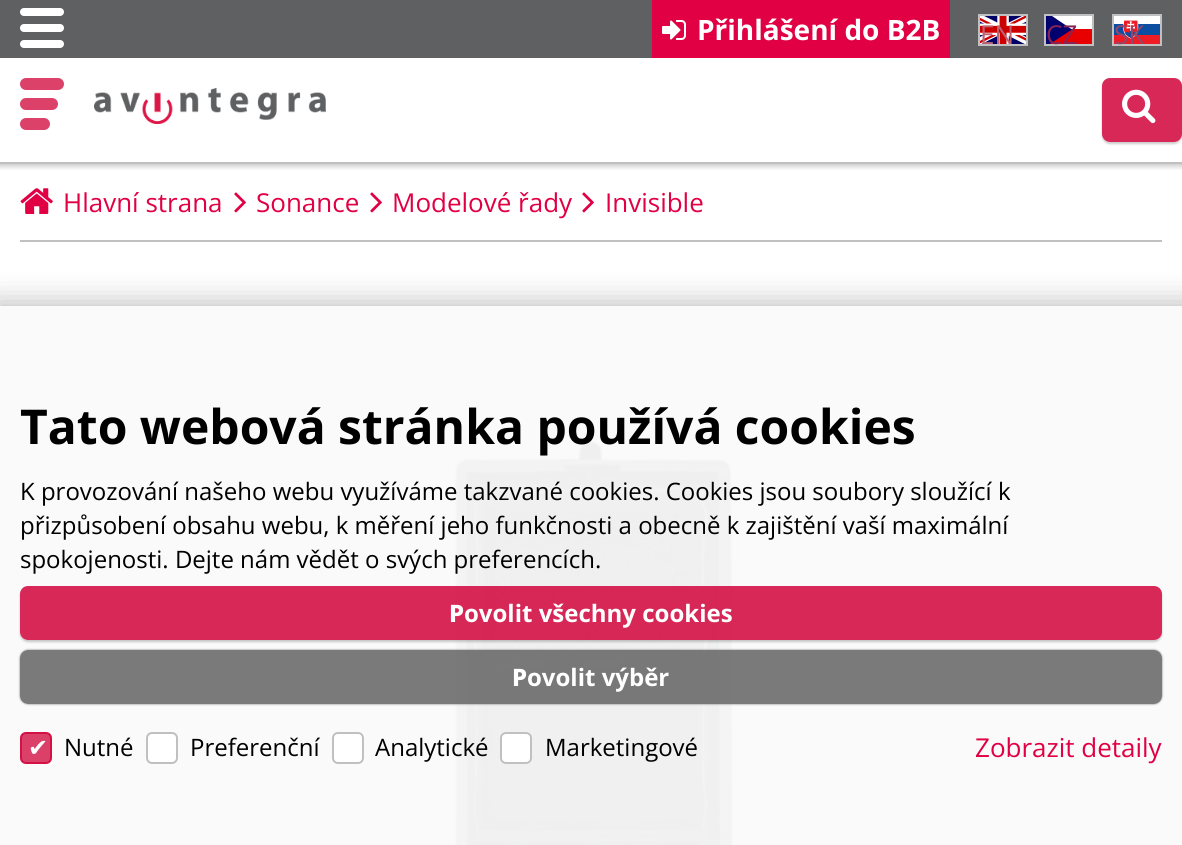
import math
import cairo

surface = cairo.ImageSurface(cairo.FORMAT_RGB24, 1182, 845)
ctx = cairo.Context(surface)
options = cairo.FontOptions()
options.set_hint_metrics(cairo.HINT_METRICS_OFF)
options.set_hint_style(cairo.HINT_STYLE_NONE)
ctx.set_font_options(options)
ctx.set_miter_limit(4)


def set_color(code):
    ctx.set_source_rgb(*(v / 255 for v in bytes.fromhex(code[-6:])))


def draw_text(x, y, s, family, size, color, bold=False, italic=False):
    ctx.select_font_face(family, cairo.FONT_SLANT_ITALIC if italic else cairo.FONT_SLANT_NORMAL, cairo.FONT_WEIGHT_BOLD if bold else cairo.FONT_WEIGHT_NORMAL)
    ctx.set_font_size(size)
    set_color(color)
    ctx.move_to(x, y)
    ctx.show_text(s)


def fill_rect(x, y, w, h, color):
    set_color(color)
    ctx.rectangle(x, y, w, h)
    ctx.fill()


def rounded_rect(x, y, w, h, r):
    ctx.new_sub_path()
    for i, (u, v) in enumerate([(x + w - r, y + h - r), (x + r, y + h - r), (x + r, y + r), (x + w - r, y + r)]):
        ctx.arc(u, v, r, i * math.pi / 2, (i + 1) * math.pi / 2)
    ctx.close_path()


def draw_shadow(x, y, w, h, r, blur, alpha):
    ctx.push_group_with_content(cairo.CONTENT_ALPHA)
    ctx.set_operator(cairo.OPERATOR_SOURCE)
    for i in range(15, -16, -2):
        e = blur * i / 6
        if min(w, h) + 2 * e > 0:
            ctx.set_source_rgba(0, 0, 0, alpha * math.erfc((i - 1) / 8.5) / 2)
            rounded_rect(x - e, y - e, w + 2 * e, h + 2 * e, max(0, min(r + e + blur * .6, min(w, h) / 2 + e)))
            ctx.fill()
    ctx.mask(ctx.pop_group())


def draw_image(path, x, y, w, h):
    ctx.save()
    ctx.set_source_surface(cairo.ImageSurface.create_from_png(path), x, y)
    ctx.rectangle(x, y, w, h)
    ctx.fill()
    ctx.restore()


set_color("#ffffff")
ctx.paint()
ctx.save()
ctx.rectangle(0, 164, 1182, 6)
ctx.clip()
set_color("#323232")
draw_shadow(-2, -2, 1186, 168, 0, 3, 0.3)
ctx.restore()
fill_rect(0, 162, 1182, 2, "#c0c0c0")
fill_rect(0, 0, 1182, 58, "#5f6062")
set_color("#ffffff")
rounded_rect(20, 8, 44, 8, 4)
ctx.fill()
rounded_rect(20, 24, 44, 8, 4)
ctx.fill()
rounded_rect(20, 40, 44, 8, 4)
ctx.fill()
fill_rect(652, 0, 298, 58, "#e00043")
draw_image("assets/img1.png", 662, 20, 24, 20)
draw_text(697, 40, "Přihlášení do B2B", "Open Sans", 28, "#ffffff", bold=True)
draw_image("assets/img2.png", 980, 16, 46, 28)
ctx.rectangle(979, 15, 48, 30)
set_color("#c0c0c0")
ctx.stroke()
draw_text(980, 44, "EN", "Open Sans", 26, "#be6272")
fill_rect(1049, 29, 43, 15, "#e80000")
fill_rect(1052, 16, 40, 13, "#ffffff")
ctx.save()
ctx.rectangle(1046, 14, 46, 32)
ctx.clip()
set_color("#00006f")
ctx.set_fill_rule(cairo.FILL_RULE_EVEN_ODD)
ctx.new_path()
ctx.move_to(1046, 12)
ctx.line_to(1072, 29.5)
ctx.line_to(1046, 46.5)
ctx.close_path()
ctx.fill()
ctx.restore()
ctx.rectangle(1045, 15, 48, 30)
set_color("#c0c0c0")
ctx.stroke()
draw_text(1046, 44, "CZ", "Open Sans", 26, "#852455")
draw_image("assets/img3.png", 1114, 16, 46, 28)
ctx.rectangle(1113, 15, 48, 30)
set_color("#c0c0c0")
ctx.stroke()
draw_text(1114, 44, "SK", "Open Sans", 26, "#93456b")
set_color("#dc416a")
rounded_rect(20, 78, 44, 12, 6)
ctx.fill()
rounded_rect(20, 98, 38, 12, 6)
ctx.fill()
rounded_rect(20, 118, 30, 12, 6)
ctx.fill()
draw_image("assets/img4.png", 94, 88, 232, 36)
ctx.save()
ctx.set_fill_rule(cairo.FILL_RULE_EVEN_ODD)
ctx.new_path()
ctx.move_to(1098, 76)
ctx.line_to(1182, 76)
ctx.line_to(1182, 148)
ctx.line_to(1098, 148)
ctx.close_path()
ctx.move_to(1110, 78)
ctx.line_to(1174, 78)
ctx.curve_to(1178.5, 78, 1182, 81.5, 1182, 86)
ctx.line_to(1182, 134)
ctx.curve_to(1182, 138.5, 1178.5, 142, 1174, 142)
ctx.line_to(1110, 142)
ctx.curve_to(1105.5, 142, 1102, 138.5, 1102, 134)
ctx.line_to(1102, 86)
ctx.curve_to(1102, 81.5, 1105.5, 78, 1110, 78)
ctx.close_path()
ctx.clip()
set_color("#000000")
draw_shadow(1102, 80, 80, 64, 8, 1, 0.2)
ctx.restore()
ctx.set_source_rgba(0.827, 0.067, 0.271, 0.9)
rounded_rect(1102, 78, 80, 64, 8)
ctx.fill()
draw_image("assets/img5.png", 1122, 89, 34, 35)
fill_rect(20, 240, 1142, 2, "#c0c0c0")
draw_image("assets/img6.png", 20, 188, 33, 26)
draw_text(63, 212, "Hlavní strana", "Open Sans", 26, "#e00043")
draw_image("assets/img7.png", 234, 192, 12, 21)
draw_text(256, 212, "Sonance", "Open Sans", 26, "#e00043")
draw_image("assets/img7.png", 370, 192, 12, 21)
draw_text(392, 212, "Modelové řady", "Open Sans", 26, "#e00043")
draw_image("assets/img7.png", 582, 192, 12, 21)
draw_text(605, 212, "Invisible", "Open Sans", 26, "#e00043")
draw_image("assets/img8.png", 454, 441, 279, 404)
ctx.save()
ctx.rectangle(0, 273, 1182, 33)
ctx.clip()
set_color("#c0c0c0")
draw_shadow(-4, 302, 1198, 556, 0, 14, 1)
ctx.restore()
ctx.set_source_rgba(0.98, 0.98, 0.98, 0.95)
ctx.rectangle(0, 306, 1182, 539)
ctx.fill()
draw_text(20, 444, "Tato webová stránka používá cookies", "Open Sans", 48, "#000000", bold=True)
draw_text(20, 500, "K provozování našeho webu využíváme takzvané cookies. Cookies jsou soubory sloužící k", "Open Sans", 24, "#000000")
draw_text(20, 534, "přizpůsobení obsahu webu, k měření jeho funkčnosti a obecně k zajištění vaší maximální", "Open Sans", 24, "#000000")
draw_text(20, 568, "spokojenosti. Dejte nám vědět o svých preferencích.", "Open Sans", 24, "#000000")
ctx.save()
ctx.set_fill_rule(cairo.FILL_RULE_EVEN_ODD)
ctx.new_path()
ctx.move_to(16, 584)
ctx.line_to(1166, 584)
ctx.line_to(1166, 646)
ctx.line_to(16, 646)
ctx.close_path()
ctx.move_to(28, 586)
ctx.line_to(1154, 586)
ctx.curve_to(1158.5, 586, 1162, 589.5, 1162, 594)
ctx.line_to(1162, 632)
ctx.curve_to(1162, 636.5, 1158.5, 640, 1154, 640)
ctx.line_to(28, 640)
ctx.curve_to(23.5, 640, 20, 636.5, 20, 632)
ctx.line_to(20, 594)
ctx.curve_to(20, 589.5, 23.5, 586, 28, 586)
ctx.close_path()
ctx.clip()
set_color("#000000")
draw_shadow(20, 588, 1142, 54, 8, 1, 0.2)
ctx.restore()
ctx.set_source_rgba(0.827, 0.067, 0.271, 0.9)
rounded_rect(20, 586, 1142, 54, 8)
ctx.fill()
draw_text(449, 622, "P", "Noto Sans ExtraBold", 24, "#ffffff")
draw_text(464, 622, "ovolit všechny cookies", "Open Sans", 24, "#ffffff", bold=True)
ctx.save()
ctx.set_fill_rule(cairo.FILL_RULE_EVEN_ODD)
ctx.new_path()
ctx.move_to(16, 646)
ctx.line_to(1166, 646)
ctx.line_to(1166, 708)
ctx.line_to(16, 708)
ctx.close_path()
ctx.move_to(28, 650)
ctx.line_to(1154, 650)
ctx.curve_to(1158.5, 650, 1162, 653.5, 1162, 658)
ctx.line_to(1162, 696)
ctx.curve_to(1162, 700.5, 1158.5, 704, 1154, 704)
ctx.line_to(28, 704)
ctx.curve_to(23.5, 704, 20, 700.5, 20, 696)
ctx.line_to(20, 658)
ctx.curve_to(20, 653.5, 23.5, 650, 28, 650)
ctx.close_path()
ctx.clip()
set_color("#5a5a5a")
draw_shadow(20, 650, 1142, 54, 8, 1, 0.8)
ctx.restore()
ctx.set_source_rgba(0.353, 0.353, 0.353, 0.8)
rounded_rect(20, 650, 1142, 54, 8)
ctx.fill()
draw_text(512, 686, "P", "Noto Sans ExtraBold", 24, "#ffffff")
draw_text(527, 686, "ovolit výběr", "Open Sans", 24, "#ffffff", bold=True)
set_color("#db4069")
rounded_rect(21, 733, 30, 30, 5)
ctx.fill_preserve()
set_color("#d31145")
ctx.stroke()
draw_text(64, 756, "Nutné", "Open Sans", 24, "#000000")
draw_text(28, 756, "✔", "DejaVu Sans", 24, "#ffffff")
rounded_rect(147, 733, 30, 30, 5)
ctx.fill_preserve()
set_color("#c0c0c0")
ctx.stroke()
draw_text(190, 756, "Preferenční", "Open Sans", 24, "#000000")
set_color("#ffffff")
rounded_rect(333, 733, 30, 30, 5)
ctx.fill_preserve()
set_color("#c0c0c0")
ctx.stroke()
draw_text(375, 756, "Analytické", "Open Sans", 24, "#000000")
set_color("#ffffff")
rounded_rect(501, 733, 30, 30, 5)
ctx.fill_preserve()
set_color("#c0c0c0")
ctx.stroke()
draw_text(545, 756, "Marketingové", "Open Sans", 24, "#000000")
draw_text(975, 757, "Zobrazit detaily", "Open Sans", 26, "#e00043")
surface.write_to_png("output.png")
